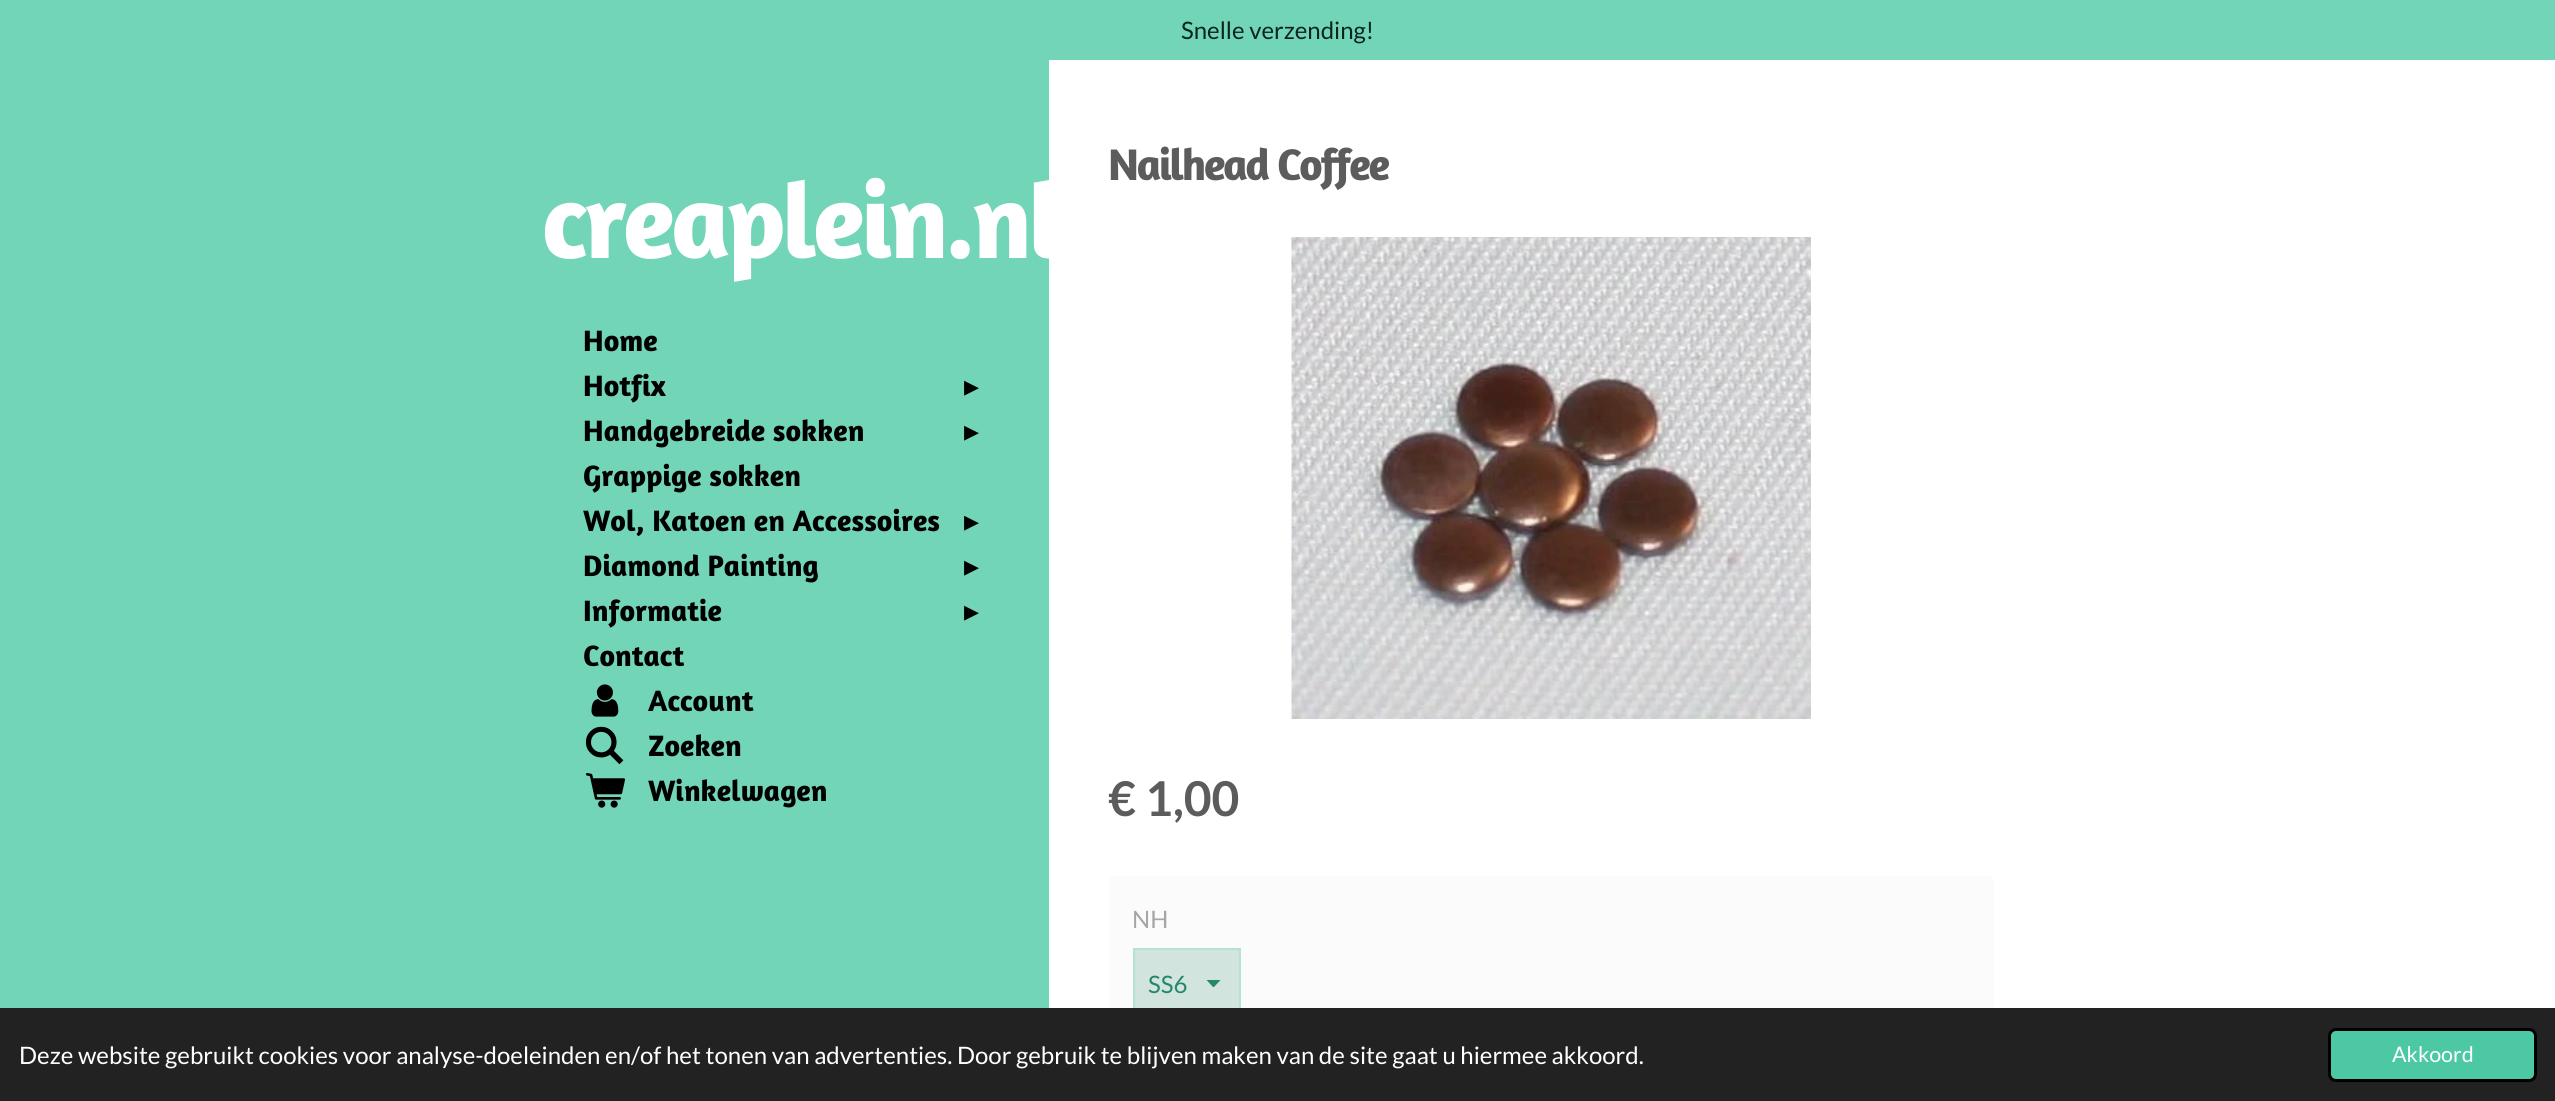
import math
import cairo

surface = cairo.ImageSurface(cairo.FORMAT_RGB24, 2555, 1101)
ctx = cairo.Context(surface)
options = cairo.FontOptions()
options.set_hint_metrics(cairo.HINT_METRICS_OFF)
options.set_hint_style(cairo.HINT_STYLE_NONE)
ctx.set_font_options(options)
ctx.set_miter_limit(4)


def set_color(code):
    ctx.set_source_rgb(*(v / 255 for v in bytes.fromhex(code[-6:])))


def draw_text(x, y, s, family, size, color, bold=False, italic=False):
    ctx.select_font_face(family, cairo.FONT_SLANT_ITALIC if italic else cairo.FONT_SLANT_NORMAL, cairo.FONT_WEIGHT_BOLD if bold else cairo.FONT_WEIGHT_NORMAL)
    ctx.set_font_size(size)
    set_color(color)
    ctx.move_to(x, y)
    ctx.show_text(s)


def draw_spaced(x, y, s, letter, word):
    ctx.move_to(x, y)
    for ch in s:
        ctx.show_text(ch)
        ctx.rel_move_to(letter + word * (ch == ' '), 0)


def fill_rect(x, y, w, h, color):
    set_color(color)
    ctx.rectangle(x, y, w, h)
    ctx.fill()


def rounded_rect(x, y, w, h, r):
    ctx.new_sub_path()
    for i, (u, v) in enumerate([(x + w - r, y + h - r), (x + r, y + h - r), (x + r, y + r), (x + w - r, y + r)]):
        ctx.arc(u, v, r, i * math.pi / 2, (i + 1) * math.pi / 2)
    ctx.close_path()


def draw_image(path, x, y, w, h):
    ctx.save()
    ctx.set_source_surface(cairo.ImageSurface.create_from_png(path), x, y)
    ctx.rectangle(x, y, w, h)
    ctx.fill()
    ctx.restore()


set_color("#ffffff")
ctx.paint()
fill_rect(0, 0, 2555, 60, "#73d5b8")
draw_text(1181, 39, "Snelle verzending!", "Lato", 24, "#0b251d")
fill_rect(0, 60, 1049, 948, "#73d5b8")
ctx.select_font_face("Amaranth", cairo.FONT_SLANT_NORMAL, cairo.FONT_WEIGHT_BOLD)
ctx.set_font_size(108)
set_color("#ffffff")
draw_spaced(542, 258, "creaplein.nl", -3.6, 0)
draw_text(583, 351, "Home", "Amaranth", 30, "#000000", bold=True)
draw_text(583, 396, "Hotfix", "Amaranth", 30, "#000000", bold=True)
draw_text(964, 396, "▸", "DejaVu Sans", 30, "#000000")
draw_text(583, 441, "Handgebreide sokken", "Amaranth", 30, "#000000", bold=True)
draw_text(964, 441, "▸", "DejaVu Sans", 30, "#000000")
draw_text(583, 486, "Grappige sokken", "Amaranth", 30, "#000000", bold=True)
draw_text(583, 531, "Wol, Katoen en Accessoires", "Amaranth", 30, "#000000", bold=True)
draw_text(964, 531, "▸", "DejaVu Sans", 30, "#000000")
draw_text(583, 576, "Diamond Painting", "Amaranth", 30, "#000000", bold=True)
draw_text(964, 576, "▸", "DejaVu Sans", 30, "#000000")
draw_text(583, 621, "Informatie", "Amaranth", 30, "#000000", bold=True)
draw_text(964, 621, "▸", "DejaVu Sans", 30, "#000000")
draw_text(583, 666, "Contact", "Amaranth", 30, "#000000", bold=True)
draw_image("assets/img1.png", 591, 684, 28, 33)
draw_text(648, 711, "Account", "Amaranth", 30, "#000000", bold=True)
draw_image("assets/img2.png", 585, 726, 39, 39)
draw_text(648, 756, "Zoeken", "Amaranth", 30, "#000000", bold=True)
draw_image("assets/img3.png", 585, 772, 41, 36)
draw_text(648, 801, "Winkelwagen", "Amaranth", 30, "#000000", bold=True)
ctx.set_font_size(45)
set_color("#5c5c5c")
draw_spaced(1108, 180, "Nailhead Coffee", -2.25, 0)
draw_image("assets/img4.png", 1291, 237, 520, 482)
draw_text(1108, 816, "€ 1,00", "Lato", 48, "#5c5c5c", bold=True)
set_color("#fbfbfb")
rounded_rect(1109, 876, 885, 189, 5)
ctx.fill()
draw_text(1132, 928, "NH", "Lato", 24, "#a6a6a6")
fill_rect(1135, 950, 104, 58, "#d1e4de")
ctx.save()
ctx.rectangle(1206, 980, 15, 7)
ctx.clip()
set_color("#28876b")
ctx.new_path()
ctx.move_to(1213.5, 987.5)
ctx.line_to(1206, 979.5)
ctx.line_to(1221, 979.5)
ctx.close_path()
ctx.fill()
ctx.restore()
ctx.rectangle(1134, 949, 106, 67)
set_color("#b4e2d4")
ctx.stroke()
draw_text(1148, 993, "SS6", "Lato", 24, "#28876b")
fill_rect(0, 1008, 2555, 93, "#222222")
draw_text(19, 1064, "Deze website gebruikt cookies voor analyse-doeleinden en/of het tonen van advertenties. Door gebruik te blijven maken van de site gaat u hiermee akkoord.", "Lato", 24, "#ffffff")
set_color("#4cc9a4")
rounded_rect(2329.5, 1029.5, 206, 51, 6.5)
ctx.fill_preserve()
set_color("#000000")
ctx.set_line_width(3)
ctx.stroke()
draw_text(2392, 1062, "Akkoord", "Lato", 21.5, "#ffffff")
surface.write_to_png("output.png")
